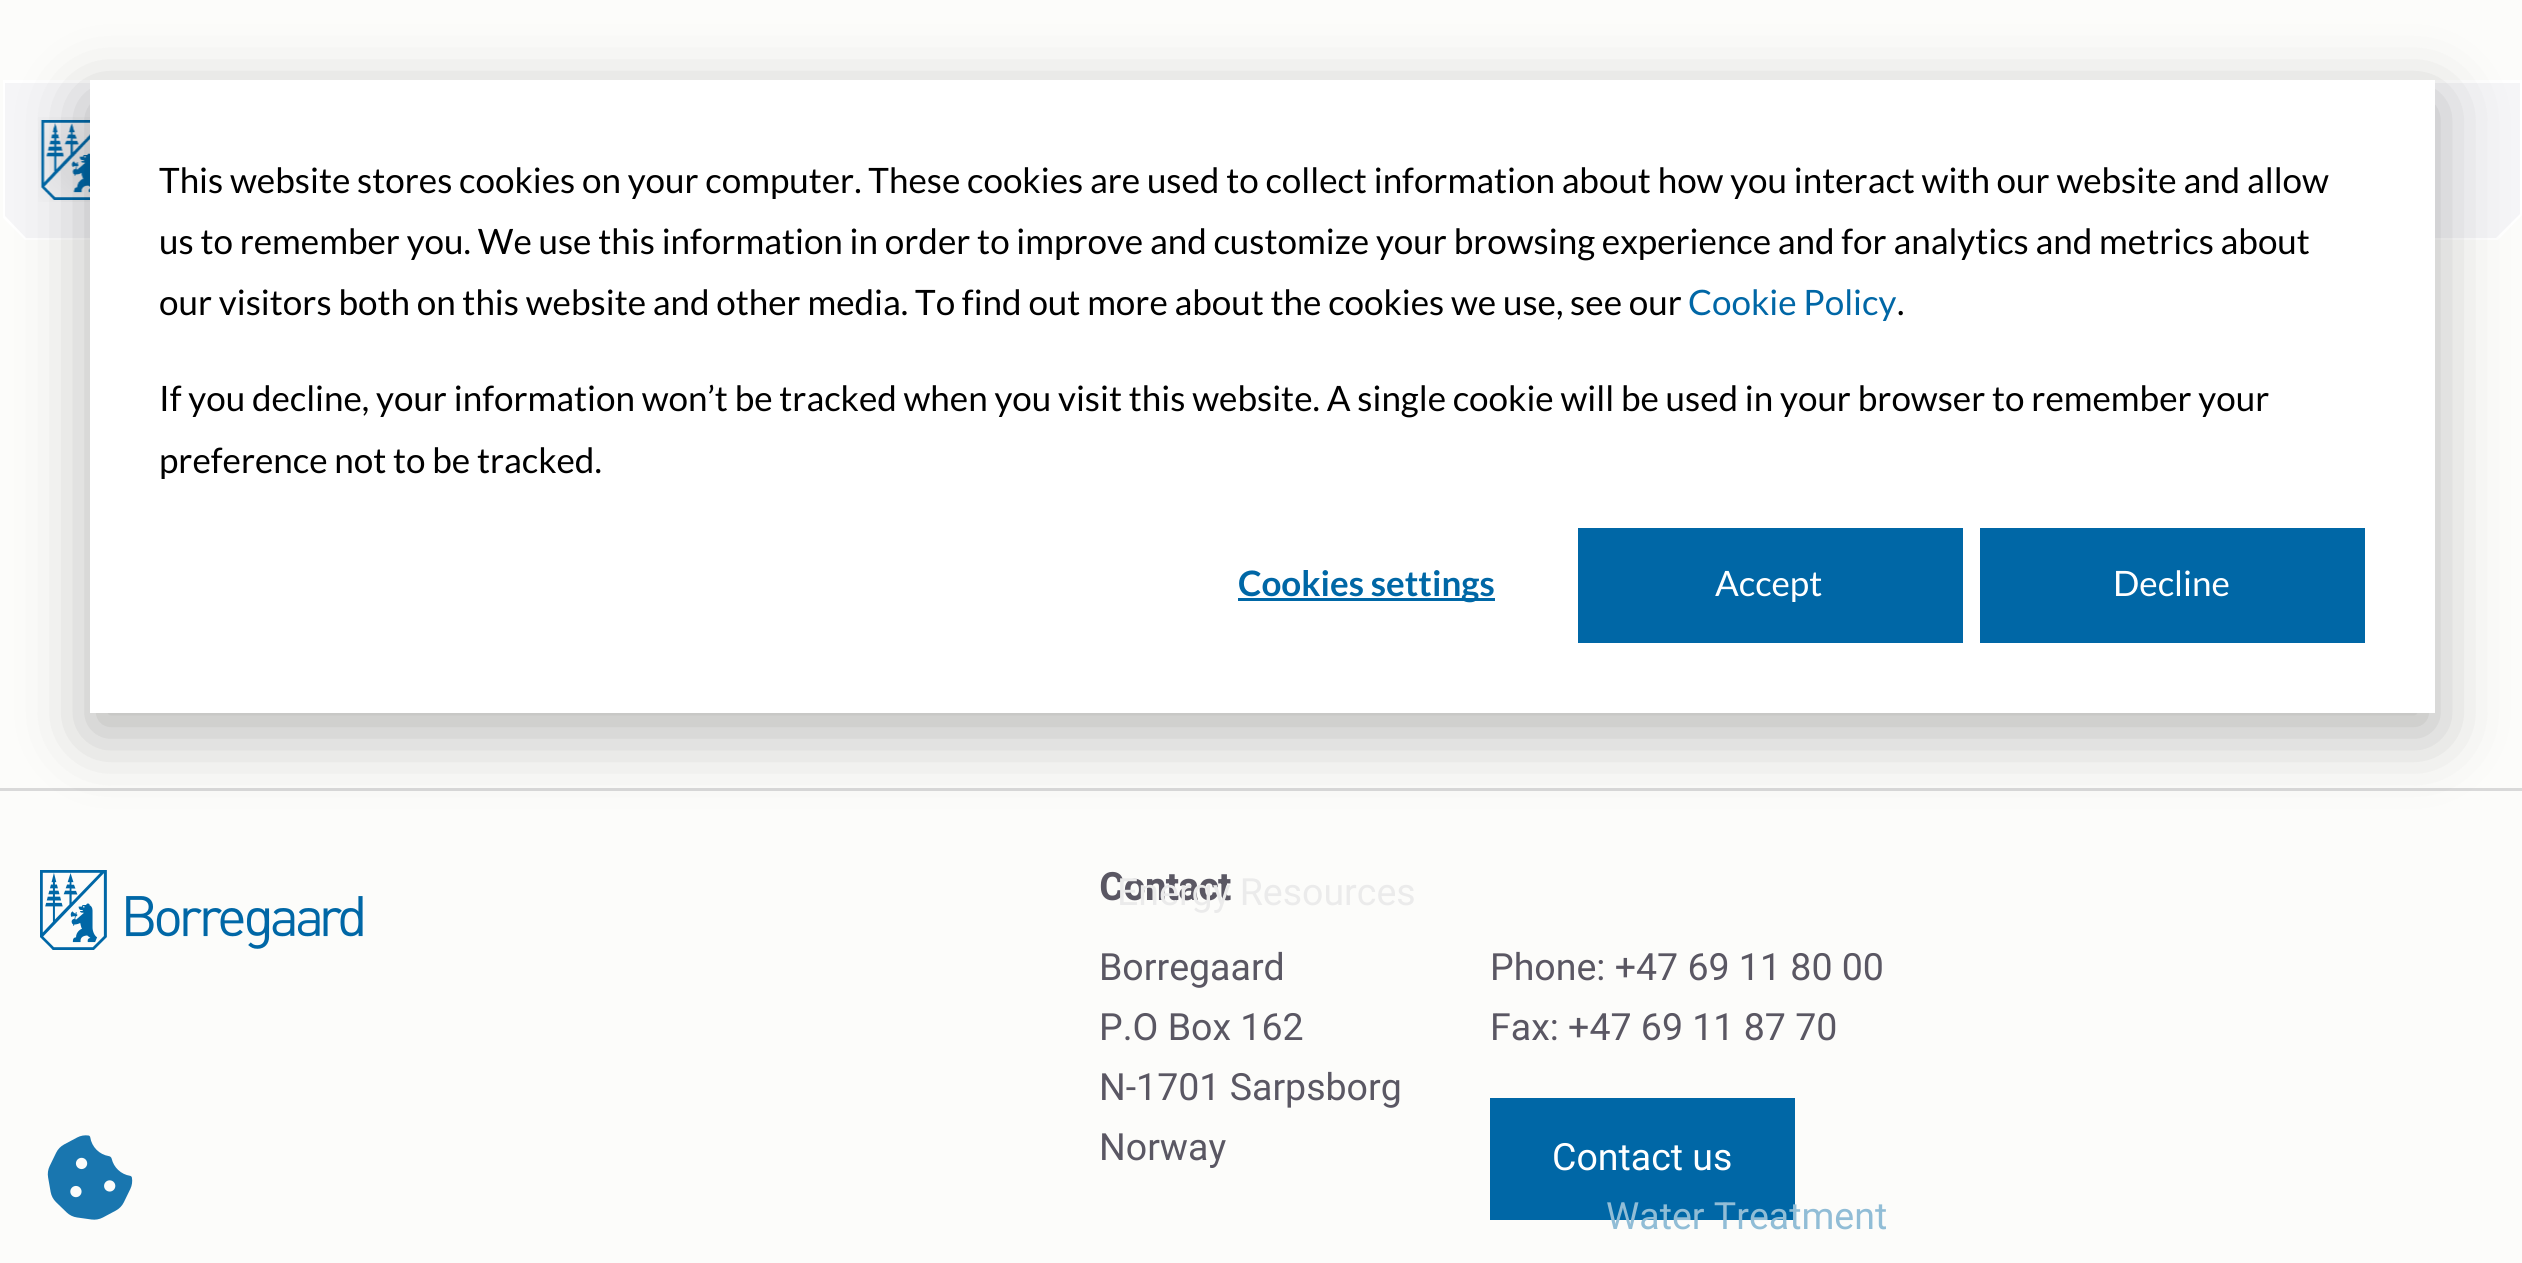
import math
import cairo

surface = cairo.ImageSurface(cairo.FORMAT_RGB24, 2522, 1263)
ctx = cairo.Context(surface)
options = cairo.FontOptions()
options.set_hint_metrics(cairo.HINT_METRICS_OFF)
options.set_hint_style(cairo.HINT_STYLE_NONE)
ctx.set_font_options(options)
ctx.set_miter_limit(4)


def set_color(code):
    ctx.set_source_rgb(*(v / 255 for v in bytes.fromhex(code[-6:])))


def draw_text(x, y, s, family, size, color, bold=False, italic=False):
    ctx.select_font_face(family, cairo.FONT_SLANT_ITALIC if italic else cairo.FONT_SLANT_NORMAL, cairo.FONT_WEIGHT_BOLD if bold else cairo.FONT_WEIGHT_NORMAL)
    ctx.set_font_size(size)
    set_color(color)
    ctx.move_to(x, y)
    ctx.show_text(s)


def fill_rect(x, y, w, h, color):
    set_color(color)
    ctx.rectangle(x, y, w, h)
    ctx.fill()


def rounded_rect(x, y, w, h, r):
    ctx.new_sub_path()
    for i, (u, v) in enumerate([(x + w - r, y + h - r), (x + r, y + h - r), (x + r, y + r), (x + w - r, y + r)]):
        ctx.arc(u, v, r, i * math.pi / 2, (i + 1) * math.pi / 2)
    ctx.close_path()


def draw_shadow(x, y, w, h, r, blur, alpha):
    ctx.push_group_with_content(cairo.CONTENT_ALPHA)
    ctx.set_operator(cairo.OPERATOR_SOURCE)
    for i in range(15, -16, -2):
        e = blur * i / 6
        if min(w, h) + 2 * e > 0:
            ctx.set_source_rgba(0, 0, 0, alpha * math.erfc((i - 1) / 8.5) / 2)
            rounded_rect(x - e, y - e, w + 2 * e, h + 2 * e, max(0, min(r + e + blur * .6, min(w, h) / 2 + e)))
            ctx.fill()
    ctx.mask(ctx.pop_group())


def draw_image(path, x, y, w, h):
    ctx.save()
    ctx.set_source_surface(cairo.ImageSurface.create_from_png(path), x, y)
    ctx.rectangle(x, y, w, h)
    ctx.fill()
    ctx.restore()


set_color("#fcfcfa")
ctx.paint()
fill_rect(0, 788, 2522, 3, "#d9d9d9")
set_color("#ffffff")
ctx.new_path()
ctx.move_to(3, 80)
ctx.line_to(3, 218)
ctx.line_to(25, 240)
ctx.line_to(2498, 240)
ctx.line_to(2522, 215)
ctx.line_to(2522, 80)
ctx.close_path()
ctx.fill()
set_color("#f5f5f7")
ctx.new_path()
ctx.move_to(5, 83)
ctx.line_to(2520, 83)
ctx.line_to(2520, 214)
ctx.line_to(2496, 238)
ctx.line_to(26, 238)
ctx.line_to(5, 216)
ctx.close_path()
ctx.fill()
draw_image("assets/img3.png", 38, 117, 52, 85)
set_color("#000000")
draw_shadow(90, 100, 2345, 633, 0, 35, 0.28)
fill_rect(90, 80, 2345, 633, "#ffffff")
draw_text(159, 193, "This website stores cookies on your computer. These cookies are used to collect information about how you interact with our website and allow", "Lato", 35, "#000000")
draw_text(159, 254, "us to remember you. We use this information in order to improve and customize your browsing experience and for analytics and metrics about", "Lato", 35, "#000000")
draw_text(159, 315, "our visitors both on this website and other media. To find out more about the cookies we use, see our", "Lato", 35, "#000000")
draw_text(1688, 315, "Cookie Policy", "Lato", 35, "#0067a6")
draw_text(1897, 315, ".", "Lato", 35, "#000000")
draw_text(159, 411, "If you decline, your information won’t be tracked when you visit this website. A single cookie will be used in your browser to remember your", "Lato", 35, "#000000")
draw_text(159, 473, "preference not to be tracked.", "Lato", 35, "#000000")
fill_rect(1238, 598, 257, 3, "#0067a6")
draw_text(1238, 596, "Cookies settings", "Lato", 35, "#0067a6", bold=True)
fill_rect(1578, 528, 385, 115, "#0067a6")
draw_text(1715, 596, "Accept", "Lato", 35, "#ffffff")
fill_rect(1980, 528, 385, 115, "#0067a6")
draw_text(2113, 596, "Decline", "Lato", 35, "#ffffff")
draw_image("assets/img1.png", 40, 870, 323, 80)
draw_text(1099, 900, "Contact", "Roboto", 37.5, "#5a5763", bold=True)
draw_text(1099, 980, "Borregaard", "Roboto", 37.5, "#5a5763")
draw_text(1099, 1040, "P.O Box 162", "Roboto", 37.5, "#5a5763")
draw_text(1099, 1100, "N-1701 Sarpsborg", "Roboto", 37.5, "#5a5763")
draw_text(1099, 1160, "Norway", "Roboto", 37.5, "#5a5763")
draw_text(1490, 980, "Phone: +47 69 11 80 00", "Roboto", 37.5, "#5a5763")
draw_text(1490, 1040, "Fax: +47 69 11 87 70", "Roboto", 37.5, "#5a5763")
fill_rect(1490, 1098, 305, 122, "#0067a6")
draw_text(1552, 1170, "Contact us", "Roboto", 37.5, "#ffffff")
draw_image("assets/img2.png", 47, 1135, 86, 85)
draw_text(1117, 905, "Energy Resources", "Roboto", 37.5, "#ebebeb")
draw_text(1606, 1229, "Water Treatment", "Roboto", 37.5, "#91bdd6")
surface.write_to_png("output.png")
